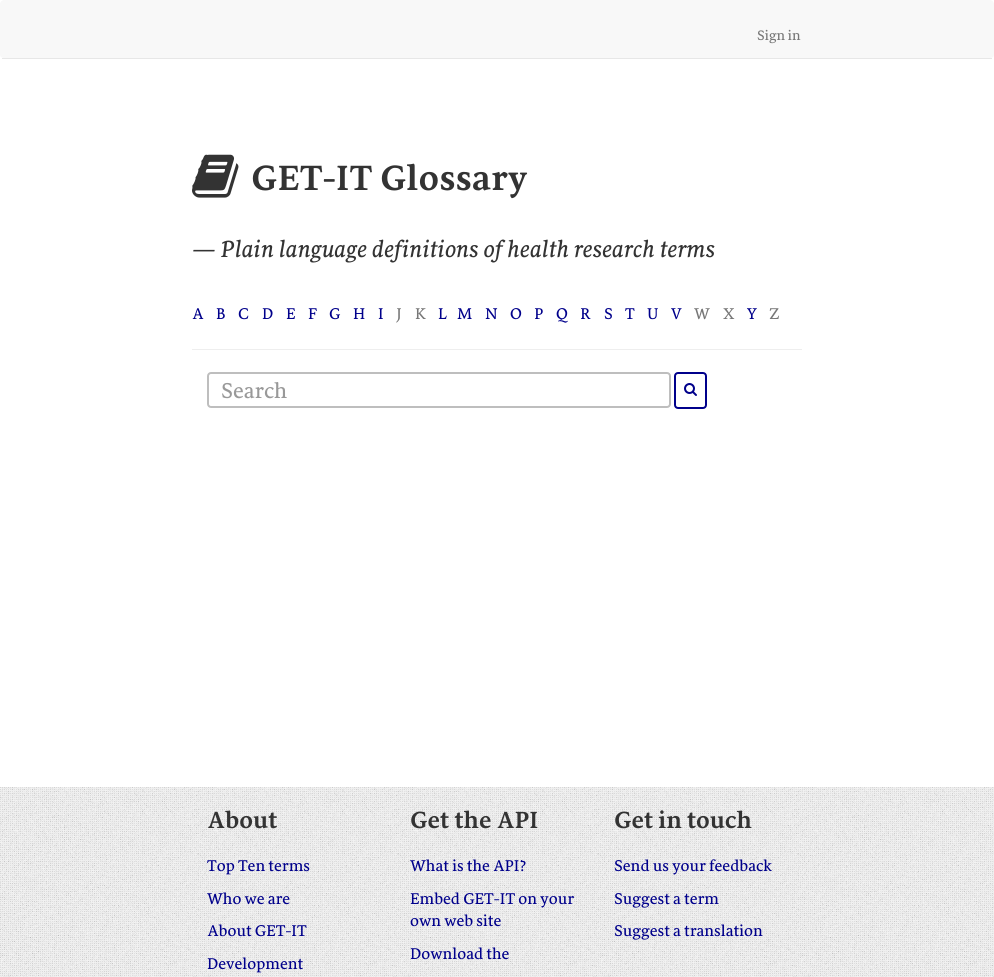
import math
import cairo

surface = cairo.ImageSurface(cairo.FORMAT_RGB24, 994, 977)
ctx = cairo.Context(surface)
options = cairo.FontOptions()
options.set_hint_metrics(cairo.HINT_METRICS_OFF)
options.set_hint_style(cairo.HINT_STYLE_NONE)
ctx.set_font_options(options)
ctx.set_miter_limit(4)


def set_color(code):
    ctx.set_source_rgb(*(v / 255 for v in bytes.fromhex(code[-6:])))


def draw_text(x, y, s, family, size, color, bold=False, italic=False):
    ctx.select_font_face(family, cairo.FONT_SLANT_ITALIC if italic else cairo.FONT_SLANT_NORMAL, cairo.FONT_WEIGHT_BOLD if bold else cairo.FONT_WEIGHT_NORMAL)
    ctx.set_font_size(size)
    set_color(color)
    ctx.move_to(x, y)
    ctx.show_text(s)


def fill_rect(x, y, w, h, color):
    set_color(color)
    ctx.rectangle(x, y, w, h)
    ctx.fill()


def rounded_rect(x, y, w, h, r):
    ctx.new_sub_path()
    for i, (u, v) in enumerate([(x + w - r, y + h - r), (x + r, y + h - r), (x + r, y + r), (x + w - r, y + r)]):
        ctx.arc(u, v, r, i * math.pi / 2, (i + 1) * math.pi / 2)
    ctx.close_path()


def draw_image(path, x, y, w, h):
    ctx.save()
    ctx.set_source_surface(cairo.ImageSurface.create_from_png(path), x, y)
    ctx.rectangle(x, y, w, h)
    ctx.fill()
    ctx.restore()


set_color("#ffffff")
ctx.paint()
set_color("#f8f8f8")
ctx.new_path()
ctx.move_to(4, 0)
ctx.line_to(990, 0)
ctx.curve_to(992, 0, 994, 2, 994, 4)
ctx.line_to(994, 55)
ctx.curve_to(994, 57, 992, 58, 990, 58)
ctx.line_to(4, 58)
ctx.curve_to(2, 58, 0, 57, 0, 55)
ctx.line_to(0, 4)
ctx.curve_to(0, 2, 2, 0, 4, 0)
ctx.close_path()
ctx.fill()
fill_rect(2, 58, 990, 1, "#e7e7e7")
draw_text(757, 40, "Sign in", "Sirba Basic", 14, "#777777")
draw_image("assets/img1.png", 192, 154, 47, 44)
draw_text(251, 190, "GET-IT Glossary", "Sirba Basic", 36, "#333333", bold=True)
draw_text(192, 257, "— Plain language definitions of health research terms", "Sirba Basic", 24, "#333333", italic=True)
draw_text(192, 319, "A", "Sirba Basic", 16, "#00008b")
draw_text(216, 319, "B", "Sirba Basic", 16, "#00008b")
draw_text(238, 319, "C", "Sirba Basic", 16, "#00008b")
draw_text(262, 319, "D", "Sirba Basic", 16, "#00008b")
draw_text(286, 319, "E", "Sirba Basic", 16, "#00008b")
draw_text(308, 319, "F", "Sirba Basic", 16, "#00008b")
draw_text(329, 319, "G", "Sirba Basic", 16, "#00008b")
draw_text(353, 319, "H", "Sirba Basic", 16, "#00008b")
draw_text(378, 319, "I", "Sirba Basic", 16, "#00008b")
draw_text(396, 319, "J", "Sirba Basic", 16, "#777777")
draw_text(415, 319, "K", "Sirba Basic", 16, "#777777")
draw_text(438, 319, "L", "Sirba Basic", 16, "#00008b")
draw_text(457, 319, "M", "Sirba Basic", 16, "#00008b")
draw_text(485, 319, "N", "Sirba Basic", 16, "#00008b")
draw_text(510, 319, "O", "Sirba Basic", 16, "#00008b")
draw_text(534, 319, "P", "Sirba Basic", 16, "#00008b")
draw_text(556, 319, "Q", "Sirba Basic", 16, "#00008b")
draw_text(580, 319, "R", "Sirba Basic", 16, "#00008b")
draw_text(604, 319, "S", "Sirba Basic", 16, "#00008b")
draw_text(625, 319, "T", "Sirba Basic", 16, "#00008b")
draw_text(647, 319, "U", "Sirba Basic", 16, "#00008b")
draw_text(671, 319, "V", "Sirba Basic", 16, "#00008b")
draw_text(694, 319, "W", "Sirba Basic", 16, "#777777")
draw_text(723, 319, "X", "Sirba Basic", 16, "#777777")
draw_text(747, 319, "Y", "Sirba Basic", 16, "#00008b")
draw_text(769, 319, "Z", "Sirba Basic", 16, "#777777")
fill_rect(192, 349, 610, 1, "#eeeeee")
rounded_rect(208, 373, 462, 34, 3)
set_color("#bebebe")
ctx.stroke()
draw_text(221, 398, "Search", "Sirba Basic", 22, "#999999")
rounded_rect(675, 373, 31, 35, 3)
set_color("#00008b")
ctx.stroke()
draw_image("assets/img2.png", 684, 383, 13, 13)
draw_image("assets/img3.png", 0, 787, 994, 190)
draw_text(207, 828, "About", "Sirba Basic", 24, "#333333", bold=True)
draw_text(207, 871, "Top Ten terms", "Sirba Basic", 16, "#00008b")
draw_text(207, 904, "Who we are", "Sirba Basic", 16, "#00008b")
draw_text(207, 936, "About GET-IT", "Sirba Basic", 16, "#00008b")
draw_text(207, 969, "Development", "Sirba Basic", 16, "#00008b")
draw_text(410, 828, "Get the API", "Sirba Basic", 24, "#333333", bold=True)
draw_text(410, 871, "What is the API?", "Sirba Basic", 16, "#00008b")
draw_text(410, 904, "Embed GET-IT on your", "Sirba Basic", 16, "#00008b")
draw_text(410, 926, "own web site", "Sirba Basic", 16, "#00008b")
draw_text(410, 959, "Download the", "Sirba Basic", 16, "#00008b")
draw_text(614, 828, "Get in touch", "Sirba Basic", 24, "#333333", bold=True)
draw_text(614, 871, "Send us your feedback", "Sirba Basic", 16, "#00008b")
draw_text(614, 904, "Suggest a term", "Sirba Basic", 16, "#00008b")
draw_text(614, 936, "Suggest a translation", "Sirba Basic", 16, "#00008b")
surface.write_to_png("output.png")
